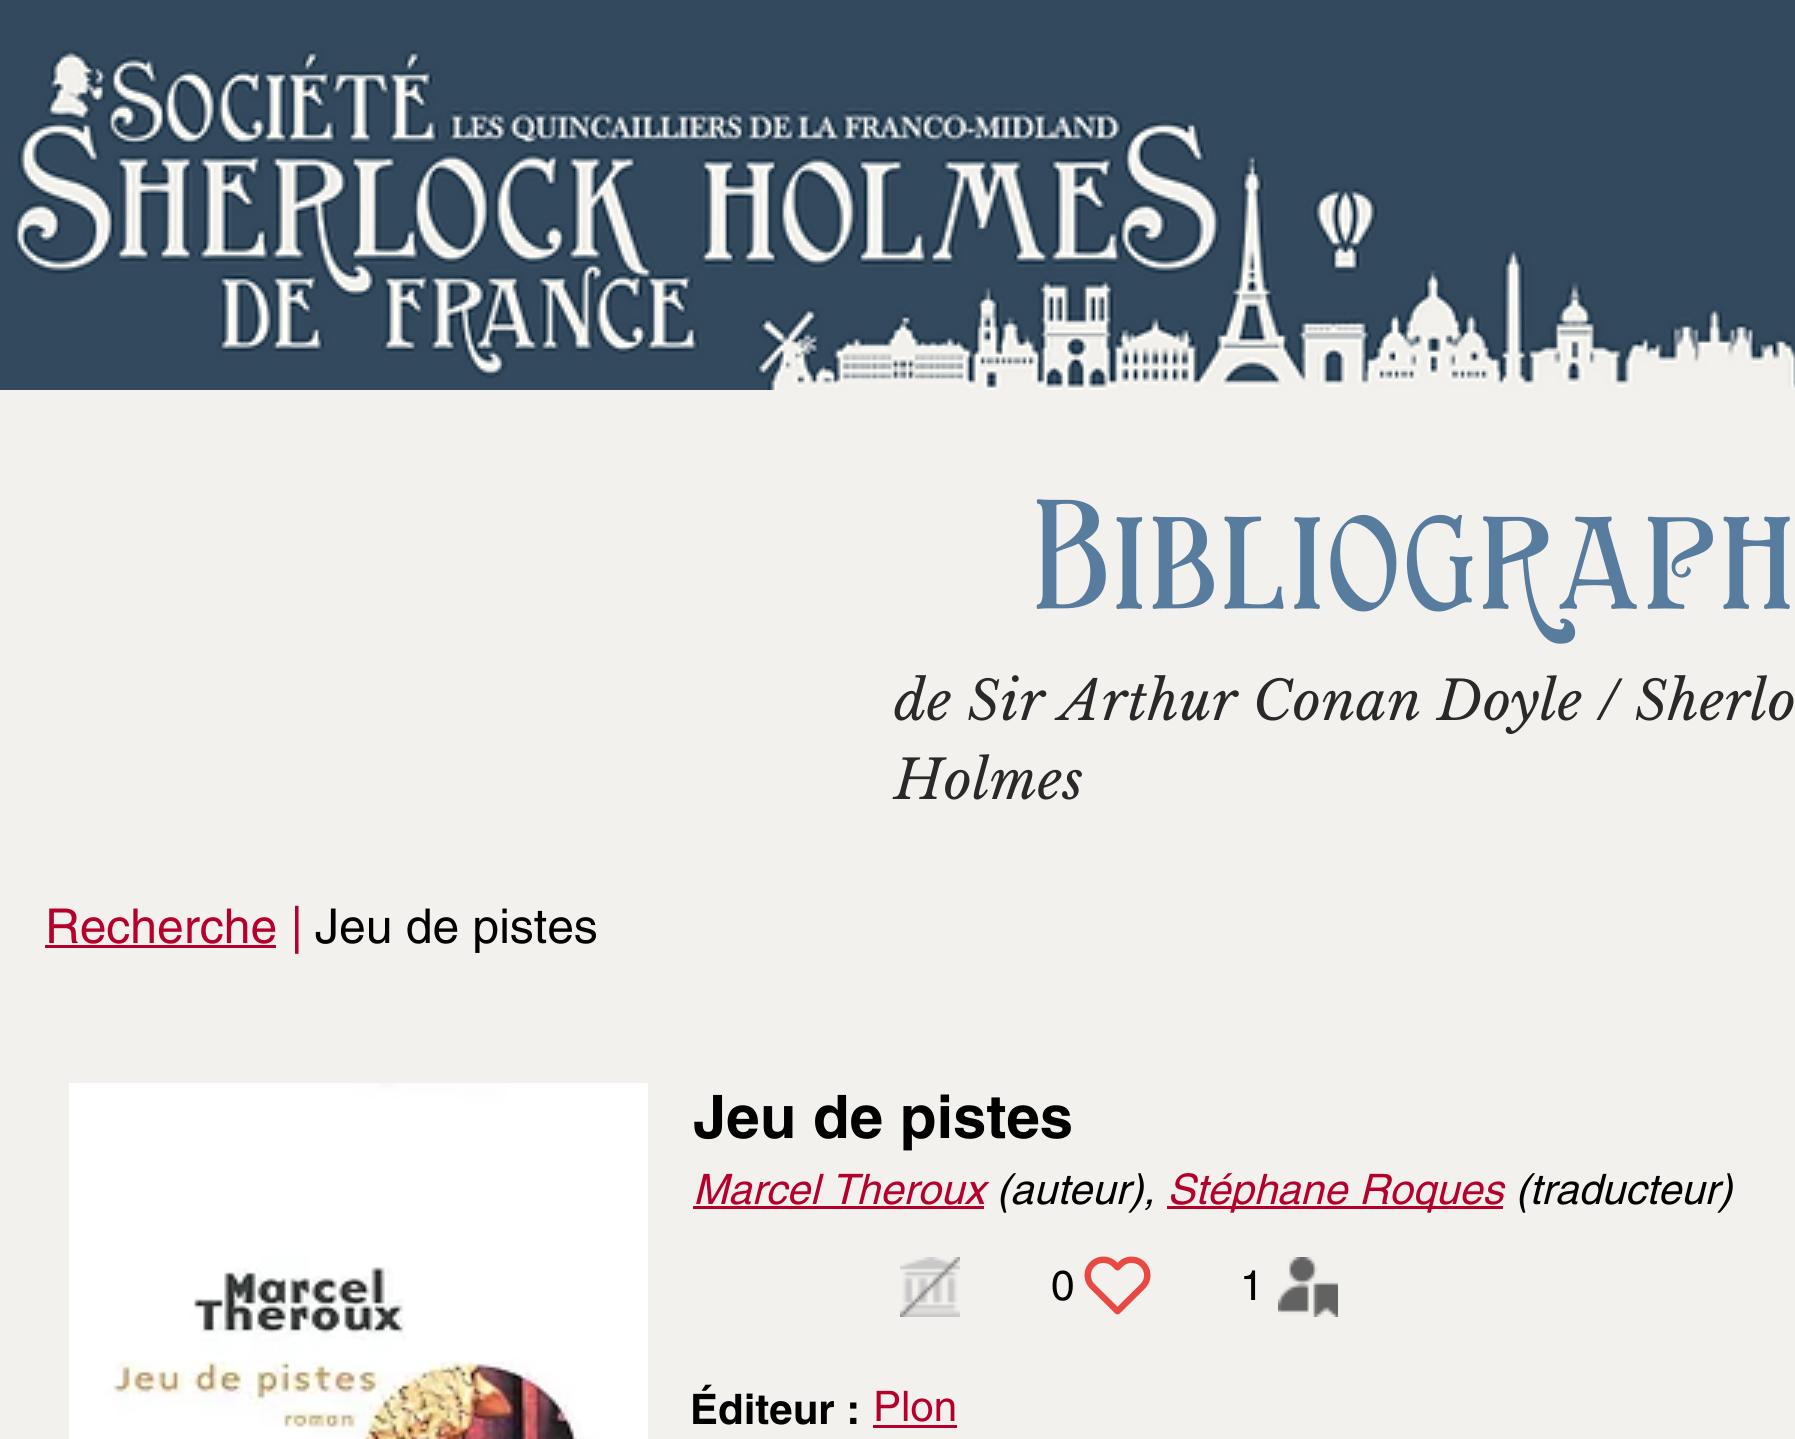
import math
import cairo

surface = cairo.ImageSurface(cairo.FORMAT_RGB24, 1795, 1439)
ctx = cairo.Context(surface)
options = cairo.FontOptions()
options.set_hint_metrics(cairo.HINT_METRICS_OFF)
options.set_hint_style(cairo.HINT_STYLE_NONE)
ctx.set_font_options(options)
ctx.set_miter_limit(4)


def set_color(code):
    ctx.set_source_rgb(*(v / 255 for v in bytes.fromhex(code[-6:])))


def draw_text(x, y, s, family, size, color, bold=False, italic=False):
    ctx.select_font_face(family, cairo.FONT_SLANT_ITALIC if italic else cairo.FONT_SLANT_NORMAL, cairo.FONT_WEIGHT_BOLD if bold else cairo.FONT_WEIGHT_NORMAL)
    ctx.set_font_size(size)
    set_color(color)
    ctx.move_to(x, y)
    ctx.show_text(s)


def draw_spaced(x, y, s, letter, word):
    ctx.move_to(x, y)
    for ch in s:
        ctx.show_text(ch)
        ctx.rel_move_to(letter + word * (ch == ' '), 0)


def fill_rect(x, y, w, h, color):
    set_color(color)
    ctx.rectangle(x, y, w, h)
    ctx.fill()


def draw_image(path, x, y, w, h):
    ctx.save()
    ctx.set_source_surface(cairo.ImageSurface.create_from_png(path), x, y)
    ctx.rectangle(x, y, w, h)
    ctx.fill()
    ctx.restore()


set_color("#f3f1ed")
ctx.paint()
fill_rect(0, 0, 1795, 390, "#33495d")
draw_image("assets/img1.png", 12, 49, 1783, 341)
ctx.select_font_face("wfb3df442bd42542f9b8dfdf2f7")
ctx.set_font_size(132)
set_color("#577c9e")
draw_spaced(1032, 609, "Bibliograph", 1.25, 0)
ctx.select_font_face("Libre Baskerville", cairo.FONT_SLANT_ITALIC)
ctx.set_font_size(54)
set_color("#292929")
draw_spaced(894, 720, "de Sir Arthur Conan Doyle / Sherlo", 0.55, 0)
draw_spaced(894, 799, "Holmes", 0.55, 0)
fill_rect(45, 945, 231, 3, "#b5002c")
draw_text(45, 943, "Recherche |", "helvetica", 48, "#b5002c")
draw_text(315, 943, "Jeu de pistes", "helvetica", 48, "#000000")
draw_image("assets/img2.png", 69, 1083, 579, 356)
draw_text(693, 1138, "Jeu de pistes", "helvetica", 60, "#000000", bold=True)
draw_text(693, 1204, "Marcel Theroux", "helvetica", 42, "#b5002c", italic=True)
fill_rect(693, 1206, 291, 3, "#b5002c")
draw_text(996, 1204, "(auteur),", "helvetica", 42, "#000000", italic=True)
fill_rect(1167, 1206, 336, 3, "#b5002c")
draw_text(1167, 1204, "Stéphane Roques", "helvetica", 42, "#b5002c", italic=True)
draw_text(1515, 1204, "(traducteur)", "helvetica", 42, "#000000", italic=True)
draw_image("assets/img3.png", 900, 1257, 60, 60)
draw_text(1051, 1300, "0", "helvetica", 42, "#000000")
draw_image("assets/img4.png", 1084, 1256, 67, 59)
draw_text(1240, 1300, "1", "helvetica", 42, "#000000")
draw_image("assets/img5.png", 1278, 1257, 60, 60)
draw_text(690, 1424, "Éditeur :", "helvetica", 42, "#000000", bold=True)
draw_text(873, 1421, "Plon", "helvetica", 42, "#b5002c")
fill_rect(873, 1425, 84, 3, "#b5002c")
surface.write_to_png("output.png")
